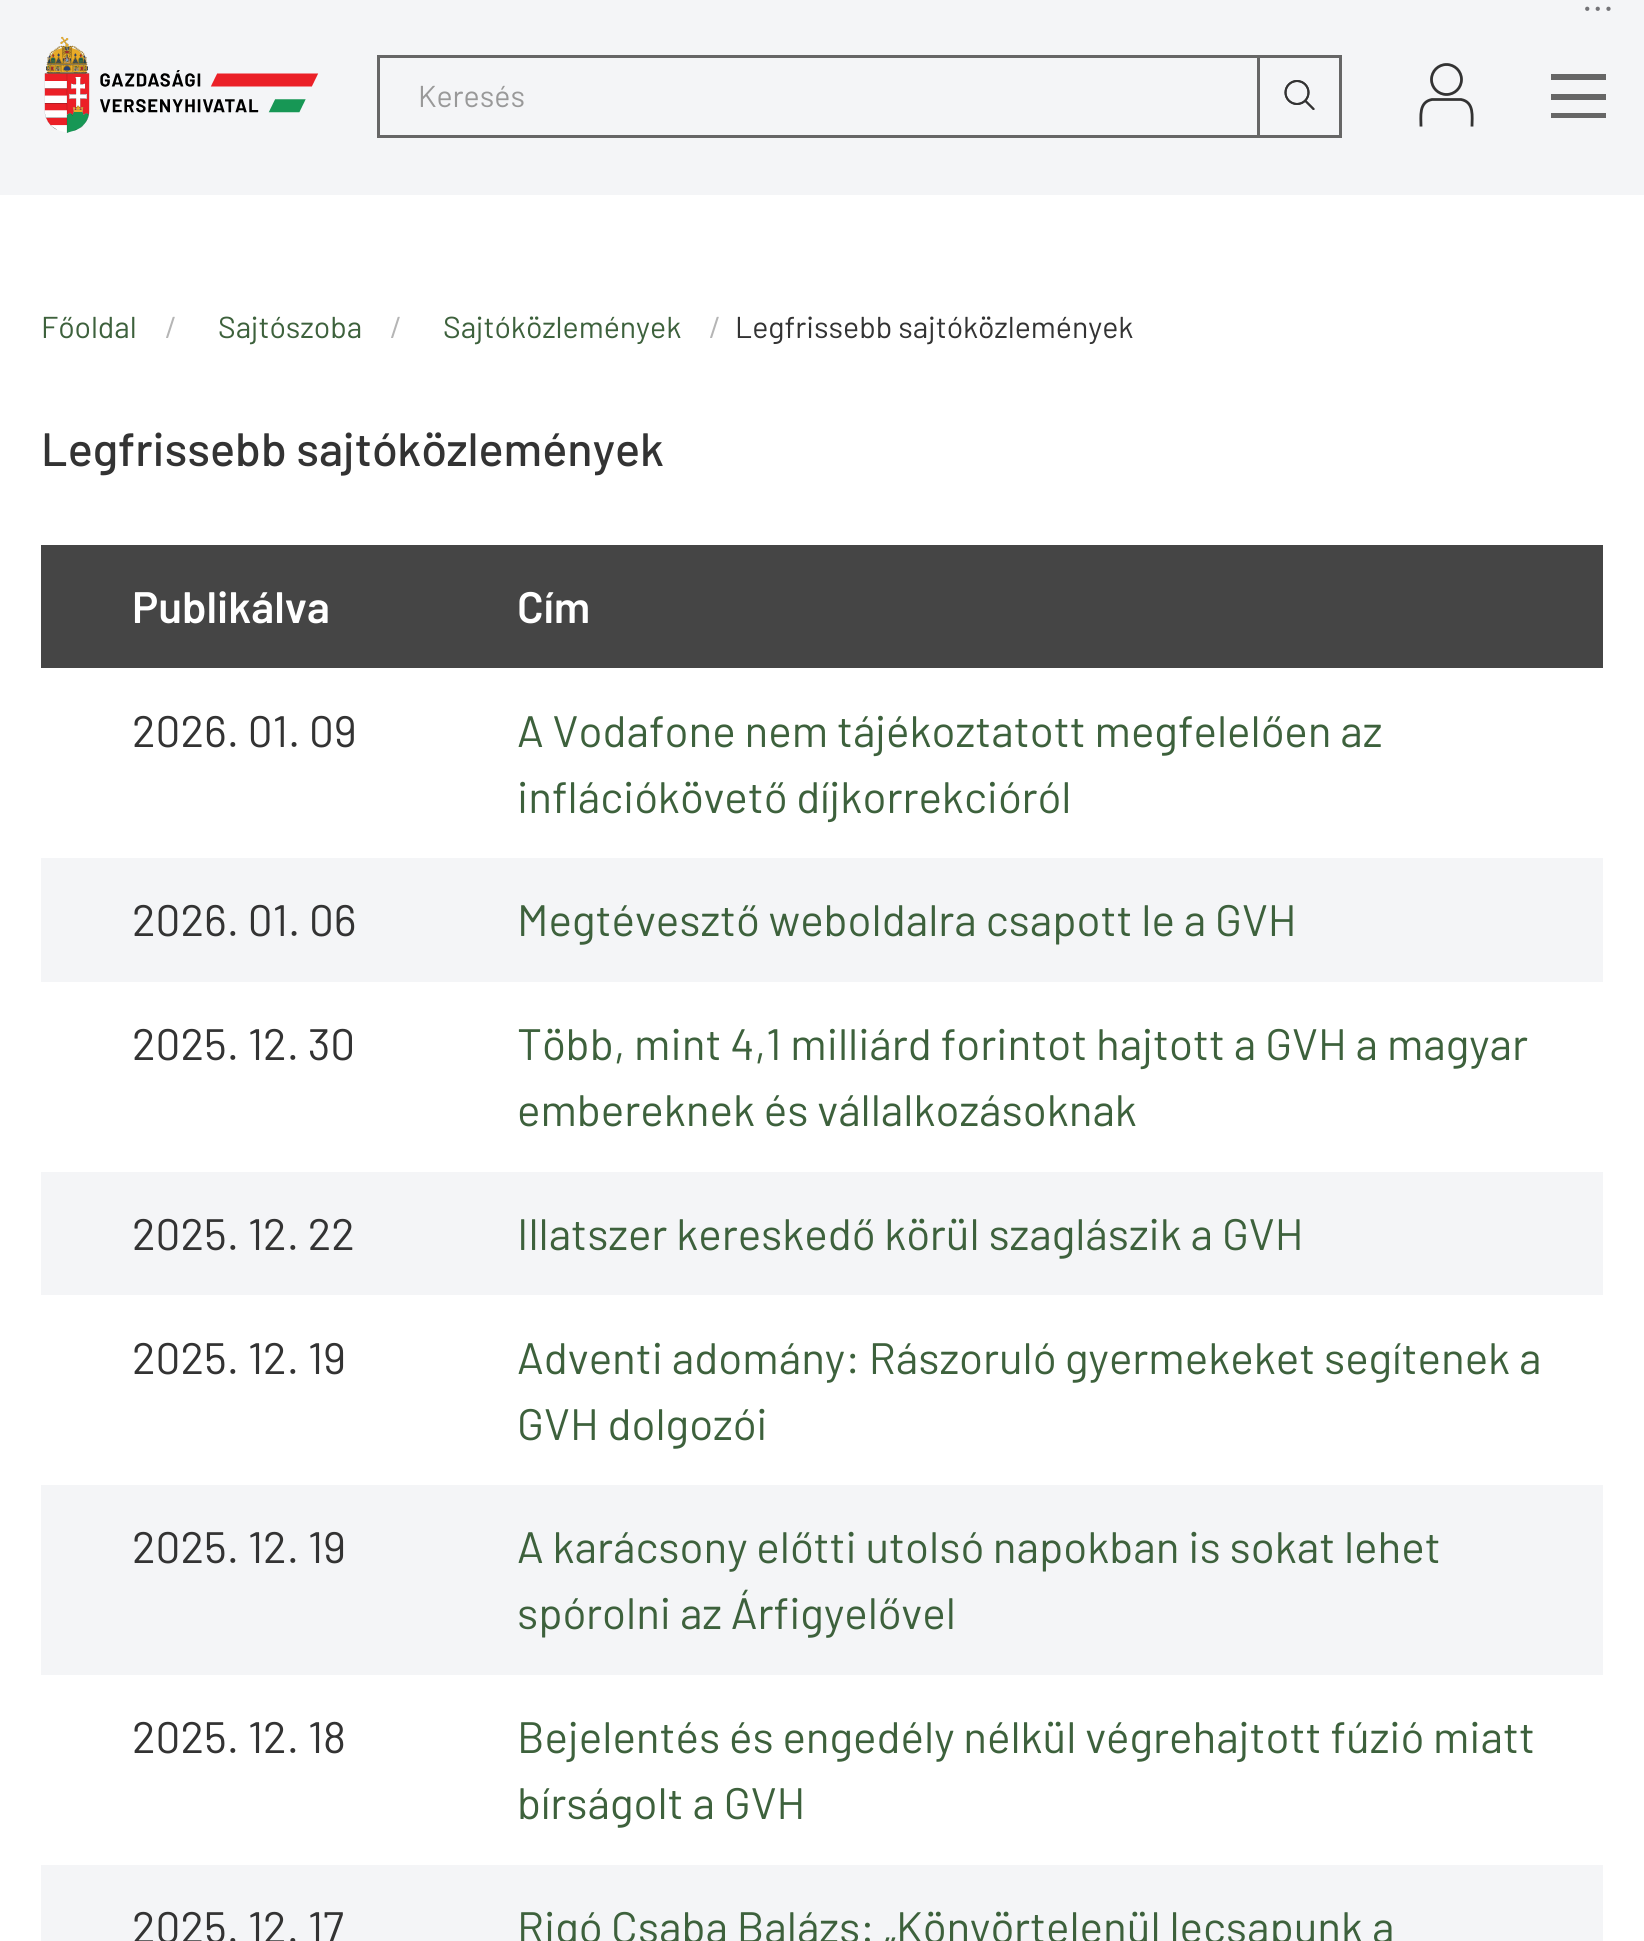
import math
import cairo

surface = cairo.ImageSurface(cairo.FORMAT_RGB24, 1644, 1941)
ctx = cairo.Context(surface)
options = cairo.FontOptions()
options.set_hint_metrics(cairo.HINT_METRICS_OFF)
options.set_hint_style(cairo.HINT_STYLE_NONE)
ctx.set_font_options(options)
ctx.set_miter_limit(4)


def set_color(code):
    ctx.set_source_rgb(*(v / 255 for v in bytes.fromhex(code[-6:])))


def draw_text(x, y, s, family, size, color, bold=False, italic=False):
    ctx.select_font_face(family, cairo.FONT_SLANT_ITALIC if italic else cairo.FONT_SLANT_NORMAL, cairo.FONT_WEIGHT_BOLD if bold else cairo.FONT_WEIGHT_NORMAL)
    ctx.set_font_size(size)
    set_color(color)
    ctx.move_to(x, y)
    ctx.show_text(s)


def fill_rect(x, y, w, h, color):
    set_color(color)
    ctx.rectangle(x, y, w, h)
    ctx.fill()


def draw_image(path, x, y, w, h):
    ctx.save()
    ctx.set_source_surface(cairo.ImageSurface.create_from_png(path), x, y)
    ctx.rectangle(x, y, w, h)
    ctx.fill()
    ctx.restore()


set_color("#ffffff")
ctx.paint()
fill_rect(0, 0, 1644, 195, "#f4f5f7")
draw_image("assets/img1.png", 44, 36, 275, 97)
draw_text(1582, 11, "...", "Barlow", 38, "#747477")
ctx.new_path()
ctx.arc(1446.5, 79.5, 15, 0, 2 * math.pi)
set_color("#333333")
ctx.set_line_width(2.8)
ctx.stroke()
ctx.new_path()
ctx.move_to(1472, 126.5)
ctx.curve_to(1472, 116.5, 1474.5, 102, 1461, 99.5)
ctx.line_to(1432, 99.5)
ctx.curve_to(1418.5, 102, 1421, 116.5, 1421, 126.5)
ctx.stroke()
ctx.rectangle(378.5, 56.5, 962, 80)
set_color("#666666")
ctx.set_line_width(3)
ctx.stroke()
draw_text(418, 107, "Keresés", "Barlow", 30.25, "#999999")
ctx.new_path()
ctx.arc(1297, 92.5, 11.5, 0, 2 * math.pi)
set_color("#333333")
ctx.set_line_width(2)
ctx.stroke()
ctx.new_path()
ctx.move_to(1305.5, 101)
ctx.line_to(1313.5, 109)
ctx.set_line_cap(cairo.LINE_CAP_ROUND)
ctx.stroke()
ctx.arc(1297, 92.5, 11.5, 0, 2 * math.pi)
ctx.set_line_cap(cairo.LINE_CAP_BUTT)
ctx.stroke()
ctx.new_path()
ctx.move_to(1305.5, 101)
ctx.line_to(1313.5, 109)
ctx.set_line_cap(cairo.LINE_CAP_ROUND)
ctx.stroke()
fill_rect(1257, 58, 3, 77, "#666666")
gradient = cairo.LinearGradient(1579, 74, 1579, 94)
gradient.add_color_stop_rgba(0, 0.4, 0.4, 0.4, 1)
gradient.add_color_stop_rgba(0.29, 0.4, 0.4, 0.4, 1)
gradient.add_color_stop_rgba(0.29, 0.957, 0.961, 0.969, 1)
gradient.add_color_stop_rgba(1, 0.957, 0.961, 0.969, 1)
ctx.set_source(gradient)
ctx.rectangle(1551, 74, 55, 6)
ctx.fill()
gradient = cairo.LinearGradient(1579, 94, 1579, 113)
gradient.add_color_stop_rgba(0, 0.4, 0.4, 0.4, 1)
gradient.add_color_stop_rgba(0.29, 0.4, 0.4, 0.4, 1)
gradient.add_color_stop_rgba(0.29, 0.957, 0.961, 0.969, 1)
gradient.add_color_stop_rgba(1, 0.957, 0.961, 0.969, 1)
ctx.set_source(gradient)
ctx.rectangle(1551, 94, 55, 6)
ctx.fill()
gradient = cairo.LinearGradient(1579, 113, 1579, 132)
gradient.add_color_stop_rgba(0, 0.4, 0.4, 0.4, 1)
gradient.add_color_stop_rgba(0.29, 0.4, 0.4, 0.4, 1)
gradient.add_color_stop_rgba(0.29, 0.957, 0.961, 0.969, 1)
gradient.add_color_stop_rgba(1, 0.957, 0.961, 0.969, 1)
ctx.set_source(gradient)
ctx.rectangle(1551, 113, 55, 5)
ctx.fill()
draw_text(41, 338, "Főoldal", "Barlow", 30.25, "#3d613c")
draw_text(165, 338, "/", "Barlow", 30.25, "#b5b5b5")
draw_text(218, 338, "Sajtószoba", "Barlow", 30.25, "#3d613c")
draw_text(390, 338, "/", "Barlow", 30.25, "#b5b5b5")
draw_text(443, 338, "Sajtóközlemények", "Barlow", 30.25, "#3d613c")
draw_text(709, 338, "/", "Barlow", 30.25, "#b5b5b5")
draw_text(735, 338, "Legfrissebb sajtóközlemények", "Barlow", 30.25, "#333333")
draw_text(41, 466, "Legfrissebb sajtóközlemények", "Barlow Medium", 46.75, "#333333")
fill_rect(41, 545, 1562, 123, "#454545")
draw_text(132, 623, "Publikálva", "Barlow SemiBold", 44, "#ffffff")
draw_text(517, 623, "Cím", "Barlow SemiBold", 44, "#ffffff")
draw_text(132, 747, "2026. 01. 09", "Barlow", 44, "#333333")
draw_text(517, 747, "A Vodafone nem tájékoztatott megfelelően az", "Barlow", 44, "#3d613c")
draw_text(517, 813, "inflációkövető díjkorrekcióról", "Barlow", 44, "#3d613c")
fill_rect(41, 858, 1562, 124, "#f4f5f7")
draw_text(132, 936, "2026. 01. 06", "Barlow", 44, "#333333")
draw_text(517, 936, "Megtévesztő weboldalra csapott le a GVH", "Barlow", 44, "#3d613c")
draw_text(132, 1060, "2025. 12. 30", "Barlow", 44, "#333333")
draw_text(517, 1060, "Több, mint 4,1 milliárd forintot hajtott a GVH a magyar", "Barlow", 44, "#3d613c")
draw_text(517, 1126, "embereknek és vállalkozásoknak", "Barlow", 44, "#3d613c")
fill_rect(41, 1172, 1562, 123, "#f4f5f7")
draw_text(132, 1250, "2025. 12. 22", "Barlow", 44, "#333333")
draw_text(517, 1250, "Illatszer kereskedő körül szaglászik a GVH", "Barlow", 44, "#3d613c")
draw_text(132, 1374, "2025. 12. 19", "Barlow", 44, "#333333")
draw_text(517, 1374, "Adventi adomány: Rászoruló gyermekeket segítenek a", "Barlow", 44, "#3d613c")
draw_text(517, 1440, "GVH dolgozói", "Barlow", 44, "#3d613c")
fill_rect(41, 1485, 1562, 190, "#f4f5f7")
draw_text(132, 1563, "2025. 12. 19", "Barlow", 44, "#333333")
draw_text(517, 1563, "A karácsony előtti utolsó napokban is sokat lehet", "Barlow", 44, "#3d613c")
draw_text(517, 1629, "spórolni az Árfigyelővel", "Barlow", 44, "#3d613c")
draw_text(132, 1753, "2025. 12. 18", "Barlow", 44, "#333333")
draw_text(517, 1753, "Bejelentés és engedély nélkül végrehajtott fúzió miatt", "Barlow", 44, "#3d613c")
draw_text(517, 1819, "bírságolt a GVH", "Barlow", 44, "#3d613c")
fill_rect(41, 1865, 1562, 76, "#f4f5f7")
draw_text(132, 1943, "2025. 12. 17", "Barlow", 44, "#333333")
draw_text(517, 1943, "Rigó Csaba Balázs: „Könyörtelenül lecsapunk a", "Barlow", 44, "#3d613c")
surface.write_to_png("output.png")
